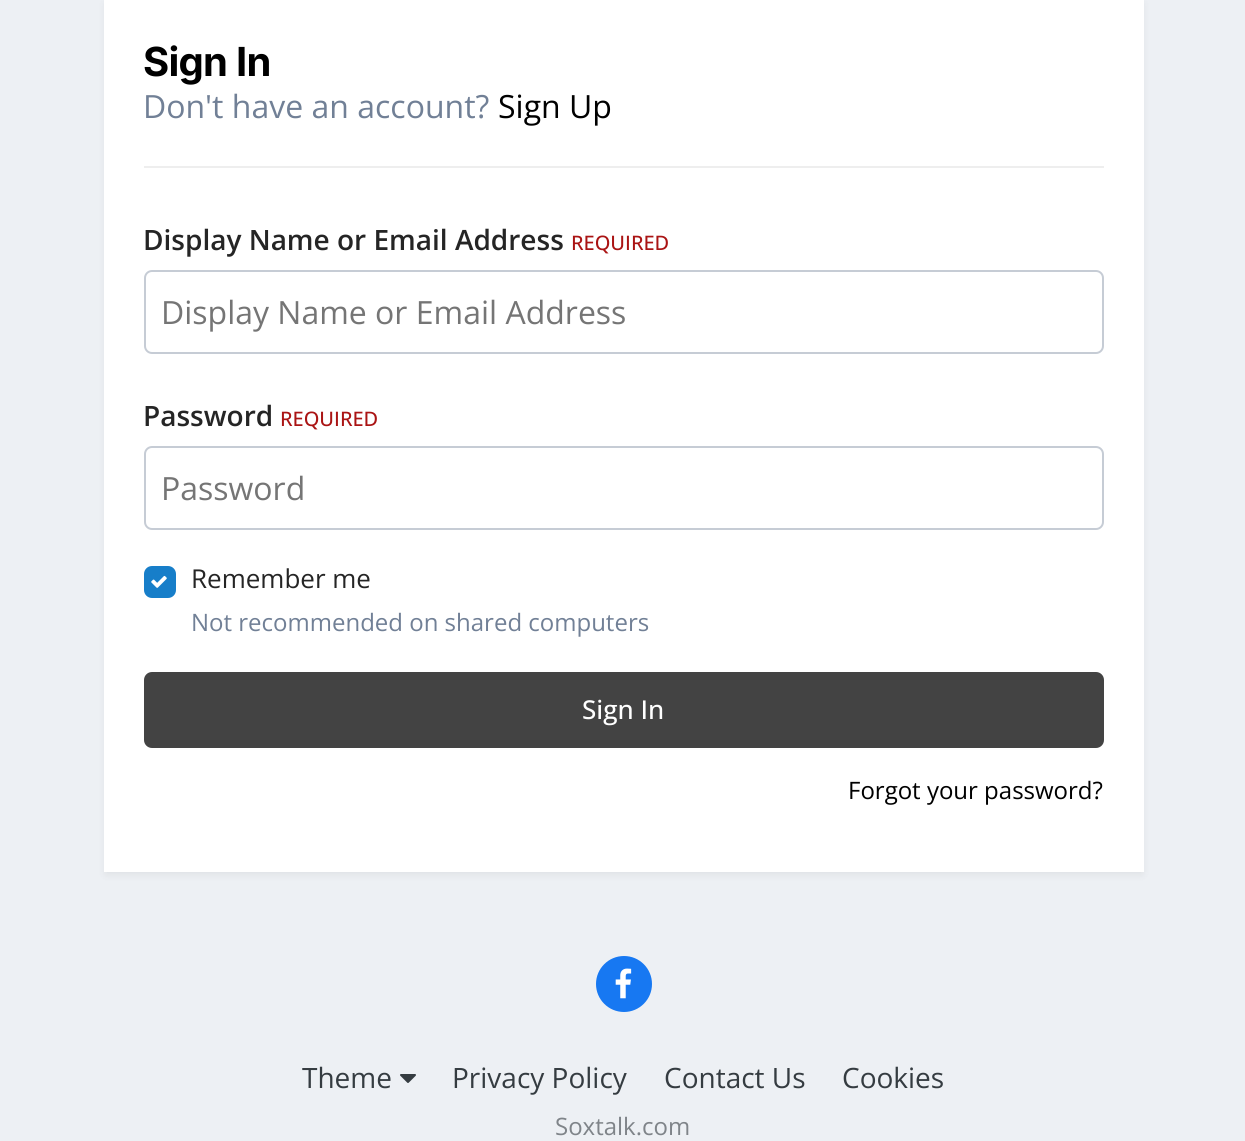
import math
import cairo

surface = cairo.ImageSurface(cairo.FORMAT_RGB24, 1245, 1141)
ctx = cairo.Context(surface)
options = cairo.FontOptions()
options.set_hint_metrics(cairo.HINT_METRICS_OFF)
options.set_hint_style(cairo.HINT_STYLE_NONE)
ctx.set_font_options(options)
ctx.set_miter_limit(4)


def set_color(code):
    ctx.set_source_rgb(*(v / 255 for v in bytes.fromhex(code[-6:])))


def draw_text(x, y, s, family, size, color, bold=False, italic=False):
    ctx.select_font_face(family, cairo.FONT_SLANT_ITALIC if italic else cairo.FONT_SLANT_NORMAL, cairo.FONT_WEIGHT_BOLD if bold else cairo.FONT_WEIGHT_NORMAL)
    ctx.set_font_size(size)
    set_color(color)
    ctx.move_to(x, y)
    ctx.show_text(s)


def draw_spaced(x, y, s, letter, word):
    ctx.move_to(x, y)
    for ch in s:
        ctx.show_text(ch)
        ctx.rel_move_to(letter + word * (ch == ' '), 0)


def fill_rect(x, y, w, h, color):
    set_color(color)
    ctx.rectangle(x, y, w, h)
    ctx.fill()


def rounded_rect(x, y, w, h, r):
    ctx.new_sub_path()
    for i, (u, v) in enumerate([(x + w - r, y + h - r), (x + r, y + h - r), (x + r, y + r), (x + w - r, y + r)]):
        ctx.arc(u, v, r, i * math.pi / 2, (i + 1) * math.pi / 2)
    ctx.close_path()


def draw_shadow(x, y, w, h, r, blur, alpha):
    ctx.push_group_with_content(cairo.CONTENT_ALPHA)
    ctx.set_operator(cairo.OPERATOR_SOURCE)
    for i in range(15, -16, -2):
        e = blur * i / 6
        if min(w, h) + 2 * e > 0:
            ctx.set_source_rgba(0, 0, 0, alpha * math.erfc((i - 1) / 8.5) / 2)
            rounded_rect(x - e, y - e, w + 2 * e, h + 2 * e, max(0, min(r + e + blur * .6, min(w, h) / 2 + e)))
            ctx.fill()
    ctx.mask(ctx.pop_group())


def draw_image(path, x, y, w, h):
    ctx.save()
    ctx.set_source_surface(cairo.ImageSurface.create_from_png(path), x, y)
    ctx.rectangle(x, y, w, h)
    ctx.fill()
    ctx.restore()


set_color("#edf0f4")
ctx.paint()
set_color("#3b3b3b")
draw_shadow(106, 4, 1036, 870, 0, 4, 0.1)
fill_rect(104, 0, 1040, 872, "#ffffff")
ctx.select_font_face("Inter", cairo.FONT_SLANT_NORMAL, cairo.FONT_WEIGHT_BOLD)
ctx.set_font_size(40)
set_color("#000000")
draw_spaced(143, 76, "Sign In", -0.75, 0)
draw_text(143, 118, "Don't have an account?", "Open Sans", 32, "#718096")
draw_text(498, 118, "Sign Up", "Open Sans", 32, "#000000")
fill_rect(144, 166, 960, 2, "#eeeeee")
draw_text(143, 250, "Display Name or Email Address", "Open Sans SemiBold", 28, "#252525")
draw_text(571, 250, "REQUIRED", "Open Sans Medium", 20, "#aa1414")
rounded_rect(145, 271, 958, 82, 7)
set_color("#c6ccd5")
ctx.stroke()
draw_text(161, 324, "Display Name or Email Address", "Open Sans", 32, "#757575")
draw_text(143, 426, "Password", "Open Sans SemiBold", 28, "#252525")
draw_text(280, 426, "REQUIRED", "Open Sans Medium", 20, "#aa1414")
rounded_rect(145, 447, 958, 82, 7)
set_color("#c6ccd5")
ctx.stroke()
draw_text(161, 500, "Password", "Open Sans", 32, "#757575")
set_color("#177ec9")
rounded_rect(145, 567, 30, 30, 7)
ctx.fill_preserve()
ctx.stroke()
draw_image("assets/img1.png", 151, 575, 16, 13)
draw_text(191, 588, "Remember me", "Open Sans", 26, "#252525")
draw_text(191, 631, "Not recommended on shared computers", "Open Sans", 24, "#718096")
set_color("#434343")
rounded_rect(144, 672, 960, 76, 8)
ctx.fill()
draw_text(582, 719, "Sign In", "Open Sans Medium", 26, "#ffffff")
draw_text(848, 799, "Forgot your password?", "Open Sans", 24, "#000000")
set_color("#1778f2")
ctx.new_path()
ctx.arc(624, 984, 28, 0, 2 * math.pi)
ctx.fill()
draw_image("assets/img2.png", 615, 968, 17, 31)
draw_text(302, 1088, "Theme", "Open Sans", 28, "#353c41")
draw_image("assets/img3.png", 400, 1074, 16, 9)
draw_text(452, 1088, "Privacy Policy", "Open Sans", 28, "#353c41")
draw_text(664, 1088, "Contact Us", "Open Sans", 28, "#353c41")
draw_text(842, 1088, "Cookies", "Open Sans", 28, "#353c41")
draw_text(555, 1135, "Soxtalk.com", "Open Sans", 24, "#7f8489")
surface.write_to_png("output.png")
